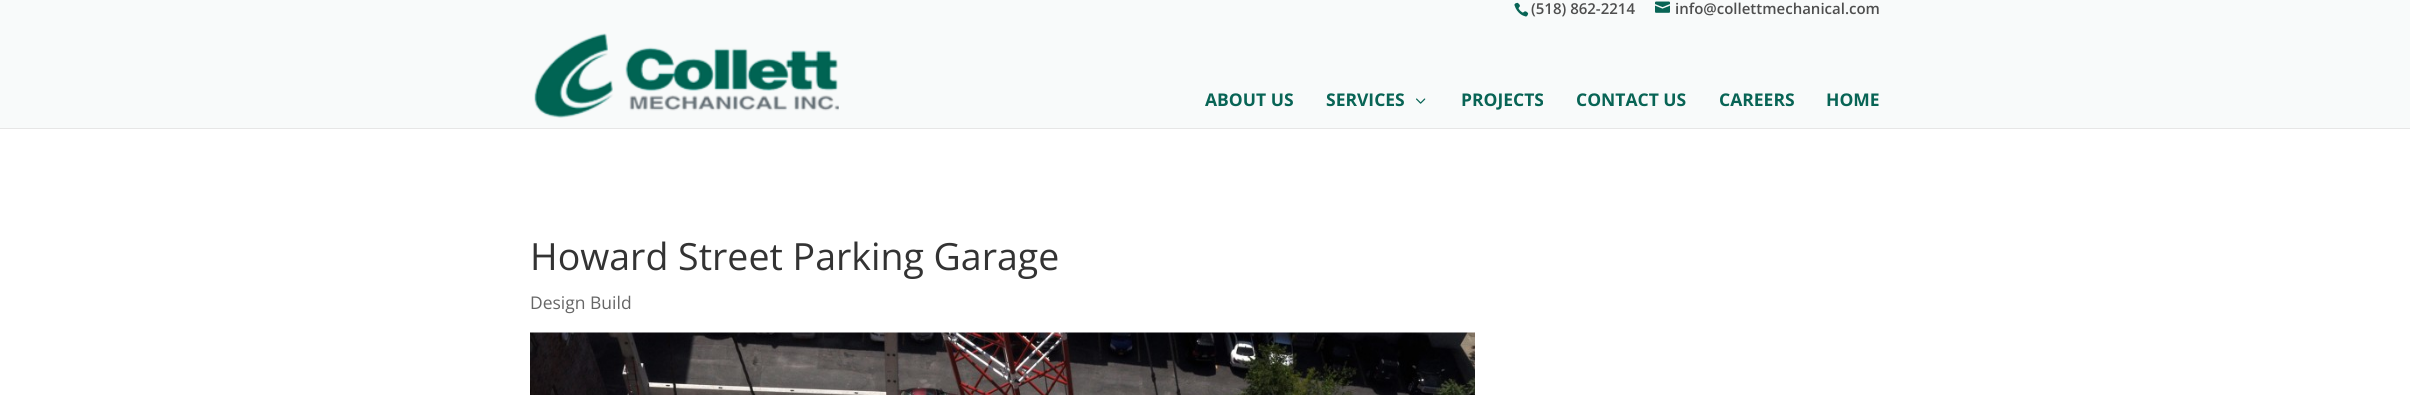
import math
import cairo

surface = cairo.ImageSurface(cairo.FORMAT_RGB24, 2410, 395)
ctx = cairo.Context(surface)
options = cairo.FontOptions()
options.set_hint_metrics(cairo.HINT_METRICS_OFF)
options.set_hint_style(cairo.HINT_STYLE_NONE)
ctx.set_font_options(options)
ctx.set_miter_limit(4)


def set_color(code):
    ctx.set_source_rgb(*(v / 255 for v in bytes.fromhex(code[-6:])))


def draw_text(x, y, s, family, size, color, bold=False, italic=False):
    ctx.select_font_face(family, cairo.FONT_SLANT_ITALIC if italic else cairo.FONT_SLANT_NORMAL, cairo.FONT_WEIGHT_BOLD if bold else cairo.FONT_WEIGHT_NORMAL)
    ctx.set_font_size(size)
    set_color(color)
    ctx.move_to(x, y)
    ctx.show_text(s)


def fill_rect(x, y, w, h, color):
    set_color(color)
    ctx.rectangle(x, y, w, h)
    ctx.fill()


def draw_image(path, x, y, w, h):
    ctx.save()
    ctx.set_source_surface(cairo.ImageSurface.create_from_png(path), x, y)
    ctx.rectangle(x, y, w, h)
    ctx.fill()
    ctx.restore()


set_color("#ffffff")
ctx.paint()
fill_rect(0, 0, 2410, 128, "#f8fafa")
draw_image("assets/img1.png", 1514, 2, 15, 15)
draw_text(1531, 14, "(518) 862-2214", "Open Sans SemiBold", 15, "#4e4e4e")
draw_image("assets/img2.png", 1655, 1, 15, 12)
draw_text(1675, 14, "info@collettmechanical.com", "Open Sans SemiBold", 15, "#4e4e4e")
fill_rect(0, 128, 2410, 1, "#e6e6e6")
draw_image("assets/img3.png", 534, 33, 305, 85)
draw_text(1205, 106, "ABOUT US", "Open Sans", 17.5, "#086455", bold=True)
draw_text(1326, 106, "SERVICES", "Open Sans", 17.5, "#086455", bold=True)
draw_image("assets/img4.png", 1416, 98, 10, 6)
draw_text(1461, 106, "PROJECTS", "Open Sans", 17.5, "#086455", bold=True)
draw_text(1576, 106, "CONTACT US", "Open Sans", 17.5, "#086455", bold=True)
draw_text(1719, 106, "CAREERS", "Open Sans", 17.5, "#086455", bold=True)
draw_text(1826, 106, "HOME", "Open Sans", 17.5, "#086455", bold=True)
draw_text(530, 270, "Howard Street Parking Garage", "Open Sans", 37.5, "#333333")
draw_text(530, 309, "Design Build", "Open Sans", 17.5, "#666666")
draw_image("assets/img5.png", 530, 332, 945, 63)
surface.write_to_png("output.png")
